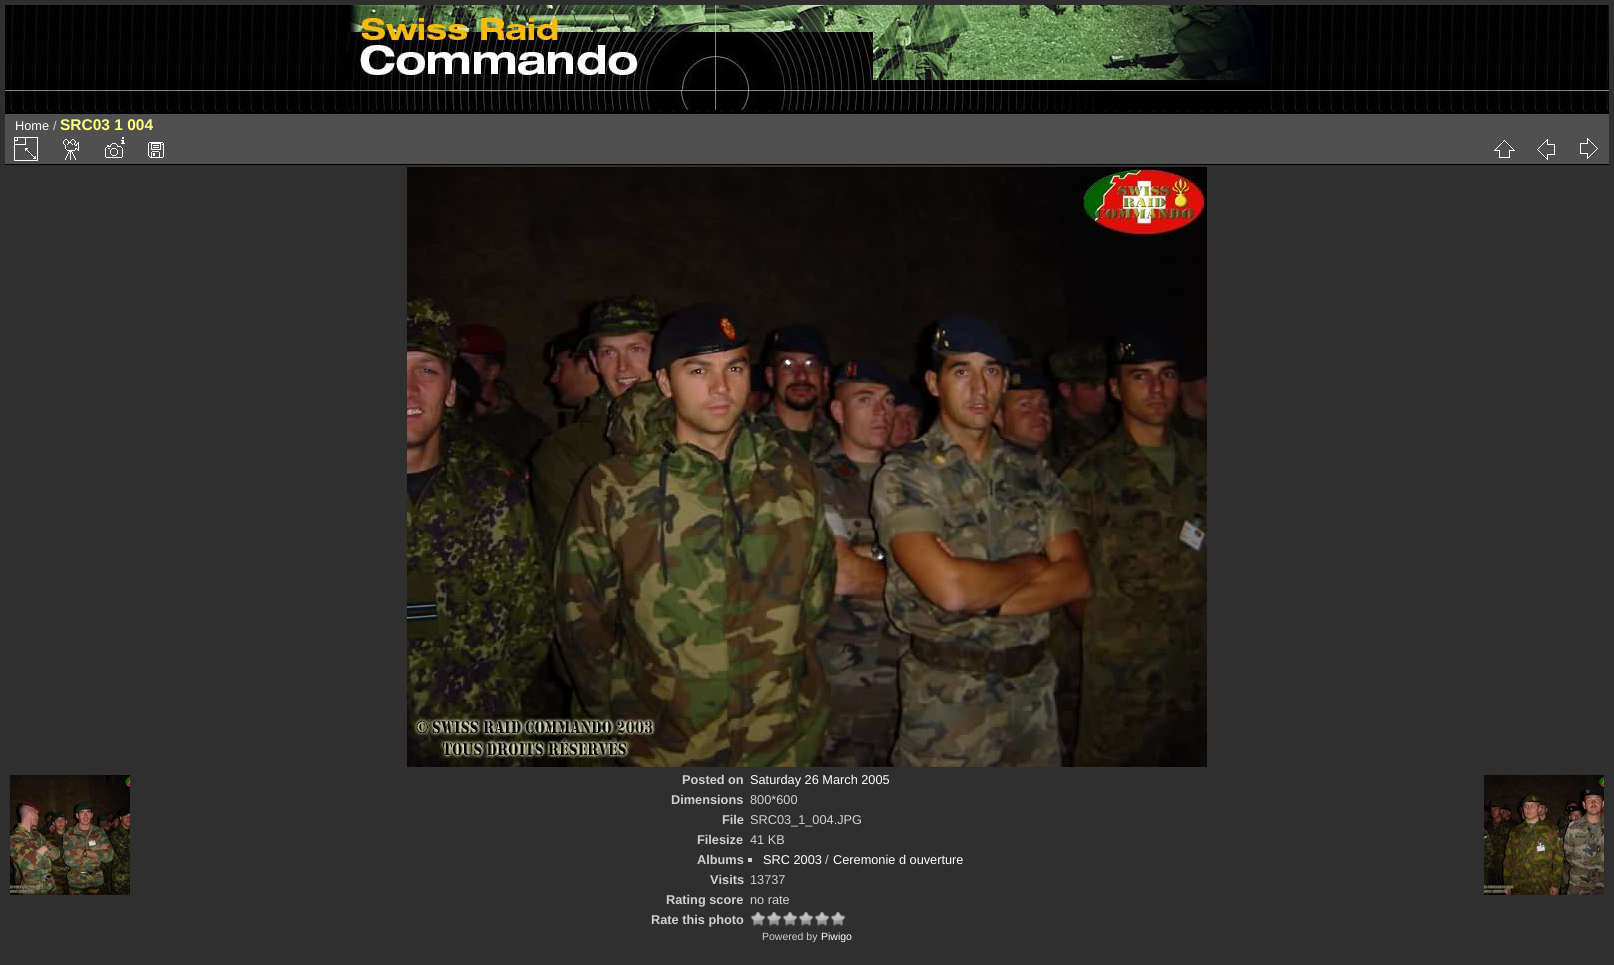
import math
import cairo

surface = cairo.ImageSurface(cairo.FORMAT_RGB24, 1614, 965)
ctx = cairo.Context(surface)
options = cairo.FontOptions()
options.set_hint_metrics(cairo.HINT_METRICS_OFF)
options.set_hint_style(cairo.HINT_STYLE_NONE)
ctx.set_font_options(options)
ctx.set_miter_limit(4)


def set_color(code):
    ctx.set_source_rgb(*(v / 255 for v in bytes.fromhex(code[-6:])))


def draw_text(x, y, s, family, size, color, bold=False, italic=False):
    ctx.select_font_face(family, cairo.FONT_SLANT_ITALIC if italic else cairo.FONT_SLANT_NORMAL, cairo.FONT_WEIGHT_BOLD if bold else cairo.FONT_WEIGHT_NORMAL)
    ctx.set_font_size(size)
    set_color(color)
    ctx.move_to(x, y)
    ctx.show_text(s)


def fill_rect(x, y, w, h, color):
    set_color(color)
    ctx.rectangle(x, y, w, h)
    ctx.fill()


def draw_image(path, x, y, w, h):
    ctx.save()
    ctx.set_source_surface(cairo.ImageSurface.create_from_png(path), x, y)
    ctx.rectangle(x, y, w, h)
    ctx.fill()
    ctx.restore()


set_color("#2f2f2f")
ctx.paint()
draw_image("assets/img1.png", 5, 5, 1604, 108)
draw_image("assets/img2.png", 347, 5, 920, 105)
fill_rect(5, 114, 1604, 50, "#505050")
fill_rect(5, 164, 1604, 1, "#000000")
draw_image("assets/img3.png", 14, 137, 24, 24)
draw_image("assets/img4.png", 63, 139, 16, 21)
draw_image("assets/img5.png", 105, 137, 20, 21)
draw_image("assets/img6.png", 148, 142, 16, 16)
draw_image("assets/img7.png", 1494, 140, 21, 18)
draw_image("assets/img8.png", 1537, 139, 18, 21)
draw_image("assets/img9.png", 1580, 138, 18, 21)
fill_rect(5, 113, 1604, 1, "#000000")
draw_text(15, 130, "Home", "Liberation Sans", 12.75, "#ffffff")
draw_text(53, 130, "/", "Liberation Sans", 12.75, "#d0d0d0")
draw_text(60, 130, "SRC03 1 004", "Liberation Sans", 15.5, "#ffff80", bold=True)
draw_image("assets/img10.png", 407, 167, 800, 600)
draw_text(682, 784, "Posted on", "Liberation Sans", 12.75, "#d0d0d0", bold=True)
draw_text(750, 784, "Saturday 26 March 2005", "Liberation Sans", 12.75, "#ffffff")
draw_text(671, 804, "Dimensions", "Liberation Sans", 12.75, "#d0d0d0", bold=True)
draw_text(750, 804, "800*600", "Liberation Sans", 12.75, "#d0d0d0")
draw_text(722, 824, "File", "Liberation Sans", 12.75, "#d0d0d0", bold=True)
draw_text(750, 824, "SRC03_1_004.JPG", "Liberation Sans", 12.75, "#d0d0d0")
draw_text(697, 844, "Filesize", "Liberation Sans", 12.75, "#d0d0d0", bold=True)
draw_text(750, 844, "41 KB", "Liberation Sans", 12.75, "#d0d0d0")
draw_text(697, 864, "Albums", "Liberation Sans", 12.75, "#d0d0d0", bold=True)
fill_rect(748, 858, 4, 4, "#d0d0d0")
draw_text(763, 864, "SRC 2003", "Liberation Sans", 12.75, "#ffffff")
draw_text(825, 864, "/", "Liberation Sans", 12.75, "#d0d0d0")
draw_text(833, 864, "Ceremonie d ouverture", "Liberation Sans", 12.75, "#ffffff")
draw_text(710, 884, "Visits", "Liberation Sans", 12.75, "#d0d0d0", bold=True)
draw_text(750, 884, "13737", "Liberation Sans", 12.75, "#d0d0d0")
draw_text(666, 904, "Rating score", "Liberation Sans", 12.75, "#d0d0d0", bold=True)
draw_text(750, 904, "no rate", "Liberation Sans", 12.75, "#d0d0d0")
draw_text(651, 924, "Rate this photo", "Liberation Sans", 12.75, "#d0d0d0", bold=True)
draw_image("assets/img11.png", 750, 912, 16, 14)
draw_image("assets/img11.png", 766, 912, 16, 14)
draw_image("assets/img11.png", 782, 912, 16, 14)
draw_image("assets/img11.png", 798, 912, 16, 14)
draw_image("assets/img11.png", 814, 912, 16, 14)
draw_image("assets/img11.png", 830, 912, 16, 14)
draw_image("assets/img12.png", 10, 775, 120, 120)
draw_image("assets/img13.png", 1484, 775, 120, 120)
draw_text(762, 940, "Powered by", "Liberation Sans", 10.5, "#d0d0d0")
draw_text(821, 940, "Piwigo", "Liberation Sans", 10.5, "#ffffff")
surface.write_to_png("output.png")
